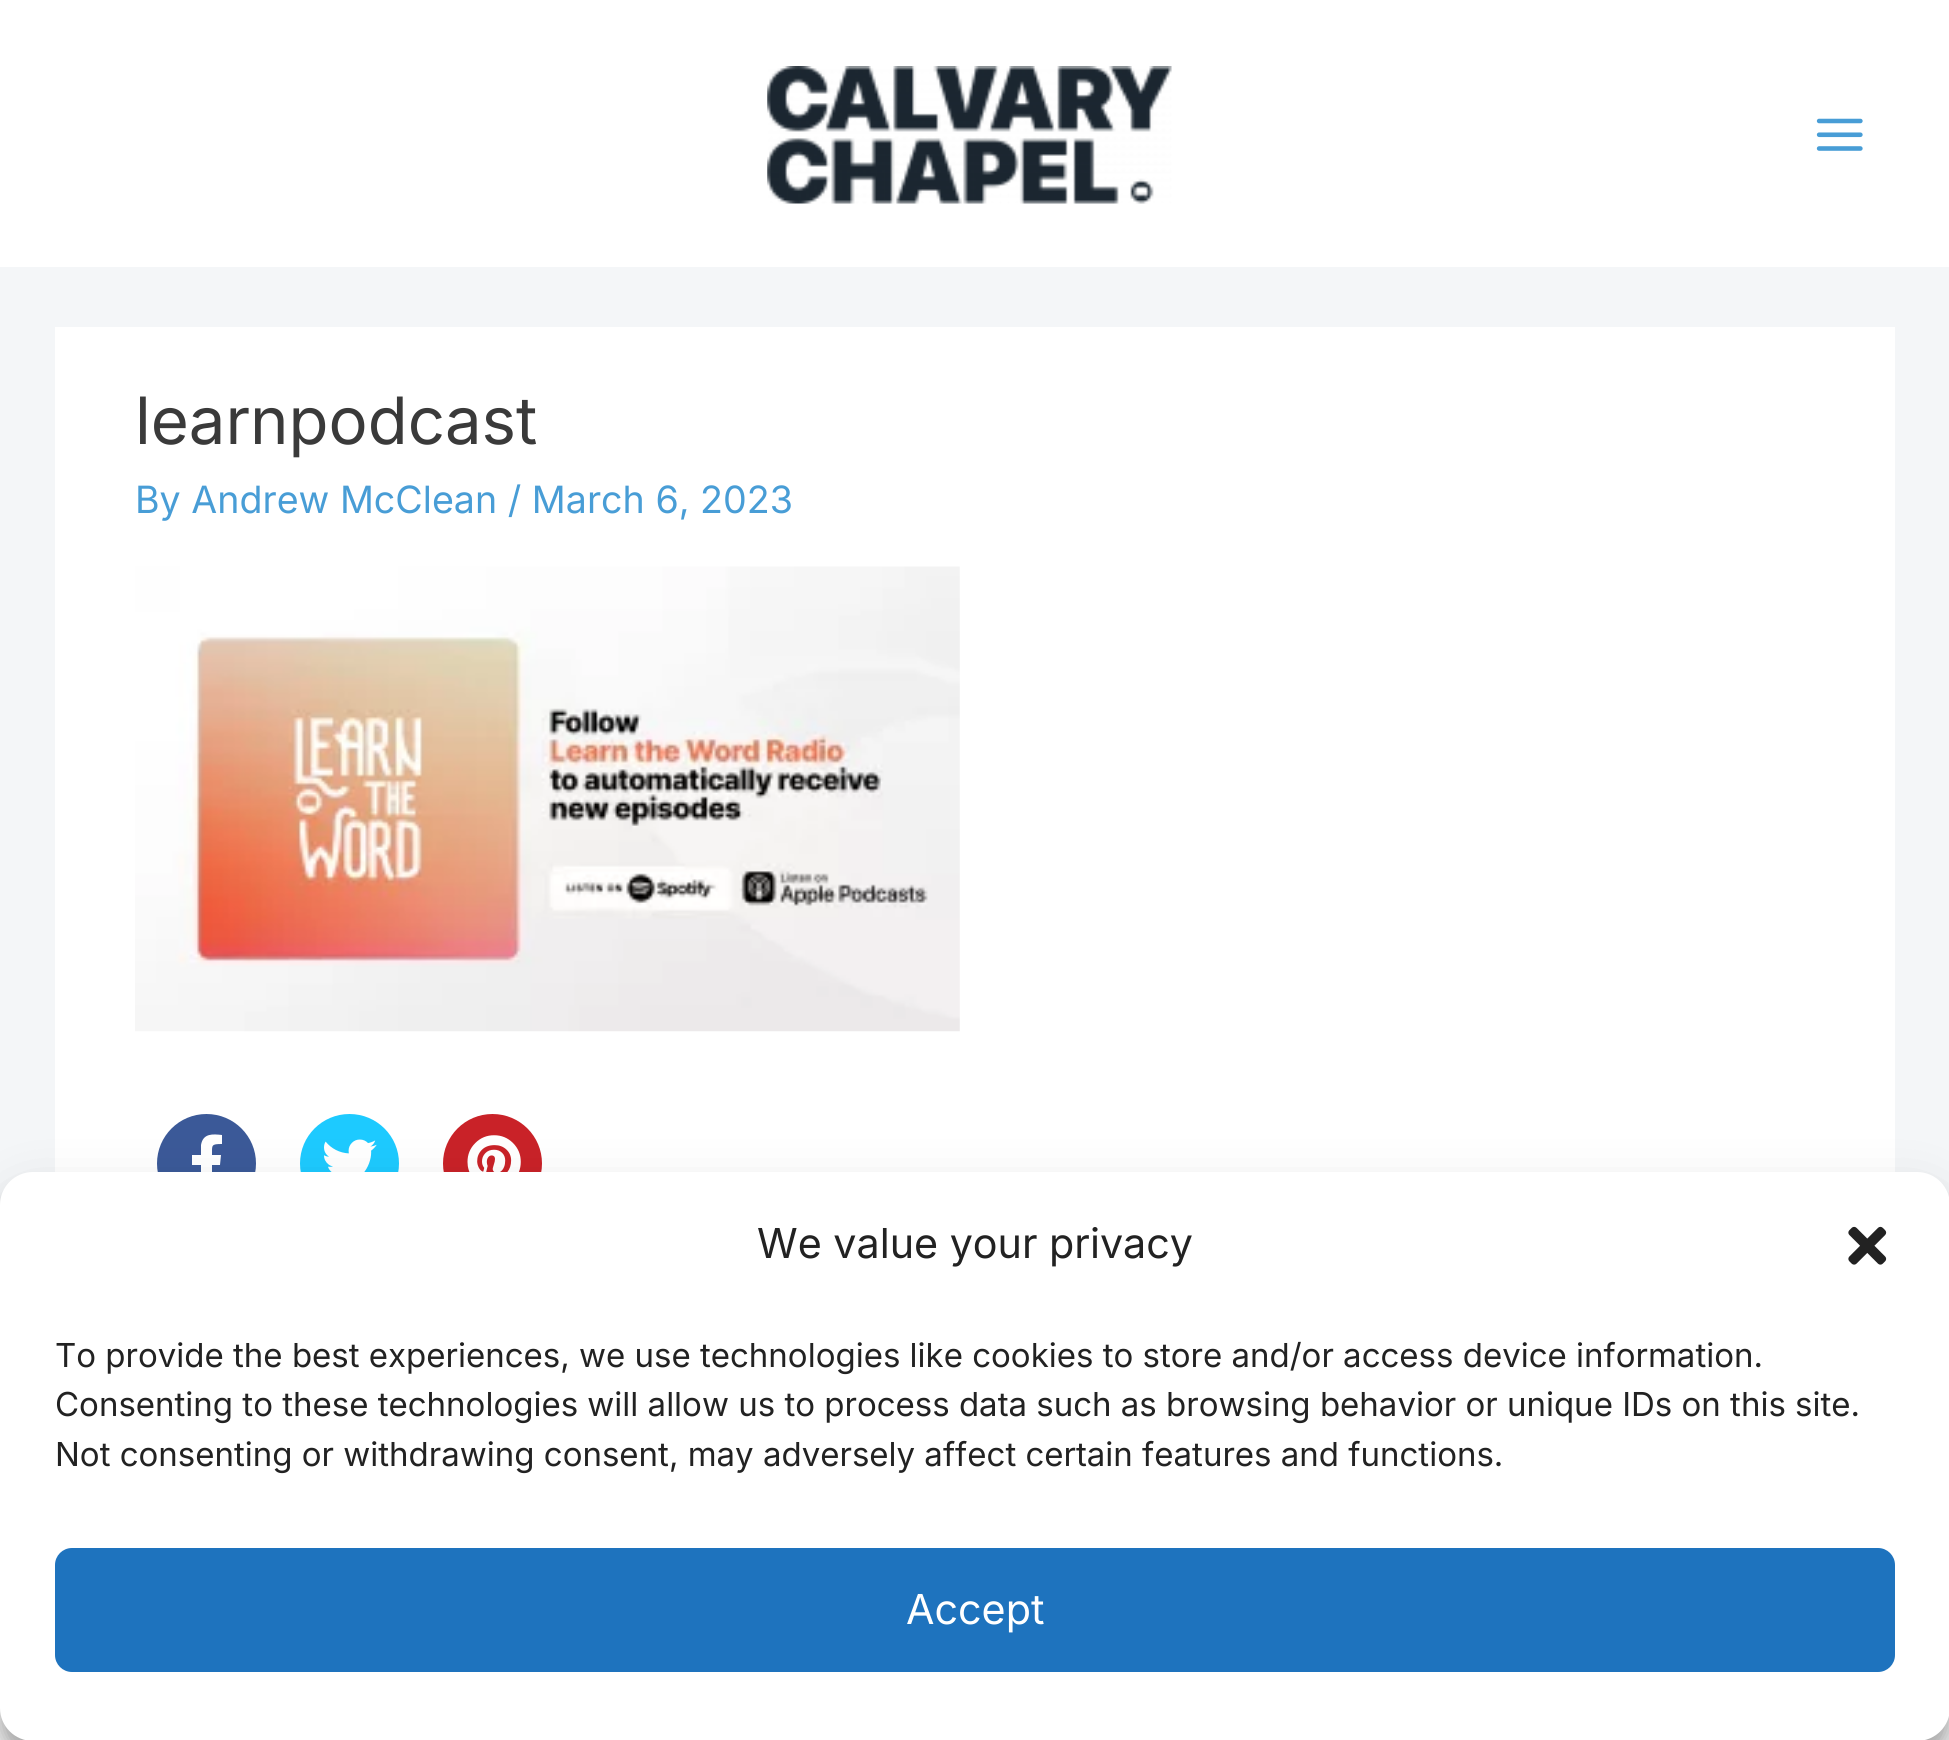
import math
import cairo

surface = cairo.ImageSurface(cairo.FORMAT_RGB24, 1949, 1740)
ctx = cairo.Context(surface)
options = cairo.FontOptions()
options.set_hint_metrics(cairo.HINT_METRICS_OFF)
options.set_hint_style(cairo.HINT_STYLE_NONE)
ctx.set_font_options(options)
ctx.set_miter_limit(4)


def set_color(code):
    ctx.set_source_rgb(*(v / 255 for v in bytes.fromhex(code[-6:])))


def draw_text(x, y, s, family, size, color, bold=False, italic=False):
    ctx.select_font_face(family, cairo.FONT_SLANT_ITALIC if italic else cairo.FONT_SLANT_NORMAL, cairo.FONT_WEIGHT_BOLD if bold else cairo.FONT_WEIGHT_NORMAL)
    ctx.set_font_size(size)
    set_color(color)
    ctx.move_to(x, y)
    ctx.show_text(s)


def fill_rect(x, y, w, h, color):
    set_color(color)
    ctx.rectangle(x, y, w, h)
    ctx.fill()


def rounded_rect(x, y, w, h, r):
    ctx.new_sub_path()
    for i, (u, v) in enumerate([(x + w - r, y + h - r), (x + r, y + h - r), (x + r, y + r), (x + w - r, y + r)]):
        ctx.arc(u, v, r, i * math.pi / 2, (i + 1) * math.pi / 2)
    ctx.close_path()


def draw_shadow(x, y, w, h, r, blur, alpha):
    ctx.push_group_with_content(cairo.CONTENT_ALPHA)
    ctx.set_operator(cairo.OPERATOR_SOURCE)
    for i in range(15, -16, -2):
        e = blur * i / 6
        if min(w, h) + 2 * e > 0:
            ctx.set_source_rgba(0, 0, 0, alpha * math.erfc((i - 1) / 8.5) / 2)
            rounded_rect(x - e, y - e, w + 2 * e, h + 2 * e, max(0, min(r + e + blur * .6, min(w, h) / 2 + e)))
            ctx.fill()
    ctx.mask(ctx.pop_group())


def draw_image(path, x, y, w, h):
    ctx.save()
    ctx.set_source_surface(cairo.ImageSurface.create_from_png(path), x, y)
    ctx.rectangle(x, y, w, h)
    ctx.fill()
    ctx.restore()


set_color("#f4f6f8")
ctx.paint()
fill_rect(0, 0, 1949, 267, "#ffffff")
draw_image("assets/img1.png", 767, 66, 405, 138)
draw_image("assets/img2.png", 1816, 118, 47, 33)
fill_rect(55, 327, 1840, 845, "#ffffff")
draw_text(135, 444, "learnpodcast", "Inter", 65.25, "#3a3a3a")
draw_text(135, 513, "By Andrew McClean / March 6, 2023", "Inter", 37.6, "#489dd6")
draw_image("assets/img3.png", 135, 566, 825, 466)
set_color("#3b5998")
ctx.arc(206.5, 1163.5, 49.5, 0, 2 * math.pi)
ctx.fill()
set_color("#ffffff")
ctx.new_path()
ctx.move_to(220, 1165)
ctx.line_to(212, 1165)
ctx.line_to(212, 1189)
ctx.line_to(201, 1189)
ctx.line_to(201, 1165)
ctx.line_to(192, 1165)
ctx.line_to(192, 1155)
ctx.line_to(201, 1155)
ctx.line_to(201, 1145)
ctx.curve_to(203, 1133, 213, 1134, 222, 1135)
ctx.line_to(222, 1144)
ctx.curve_to(211, 1144, 212, 1145, 212, 1155)
ctx.line_to(221, 1155)
ctx.close_path()
ctx.fill()
set_color("#1dcaff")
ctx.arc(349.5, 1163.5, 49.5, 0, 2 * math.pi)
ctx.fill()
draw_image("assets/img4.png", 324, 1139, 53, 33)
set_color("#c92228")
ctx.arc(492.5, 1163.5, 49.5, 0, 2 * math.pi)
ctx.fill()
draw_image("assets/img5.png", 467, 1135, 54, 37)
fill_rect(0, 1708, 1949, 32, "#ffffff")
set_color("#000000")
draw_shadow(0, 1188, 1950, 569, 33, 8, 0.23)
draw_shadow(0, 1199, 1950, 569, 33, 27.5, 0.19)
set_color("#ffffff")
rounded_rect(0, 1172, 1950, 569, 33)
ctx.fill()
draw_text(757, 1258, "We value your privacy", "Inter", 41.25, "#222222")
draw_image("assets/img6.png", 1848, 1226, 39, 39)
draw_text(55, 1367, "To provide the best experiences, we use technologies like cookies to store and/or access device information.", "Inter", 33, "#222222")
draw_text(55, 1416, "Consenting to these technologies will allow us to process data such as browsing behavior or unique IDs on this site.", "Inter", 33, "#222222")
draw_text(55, 1466, "Not consenting or withdrawing consent, may adversely affect certain features and functions.", "Inter", 33, "#222222")
set_color("#1e73be")
rounded_rect(56.5, 1549.5, 1837, 121, 15.5)
ctx.fill_preserve()
ctx.set_line_width(3)
ctx.stroke()
draw_text(906, 1624, "Accept", "Inter", 41.25, "#ffffff")
surface.write_to_png("output.png")
